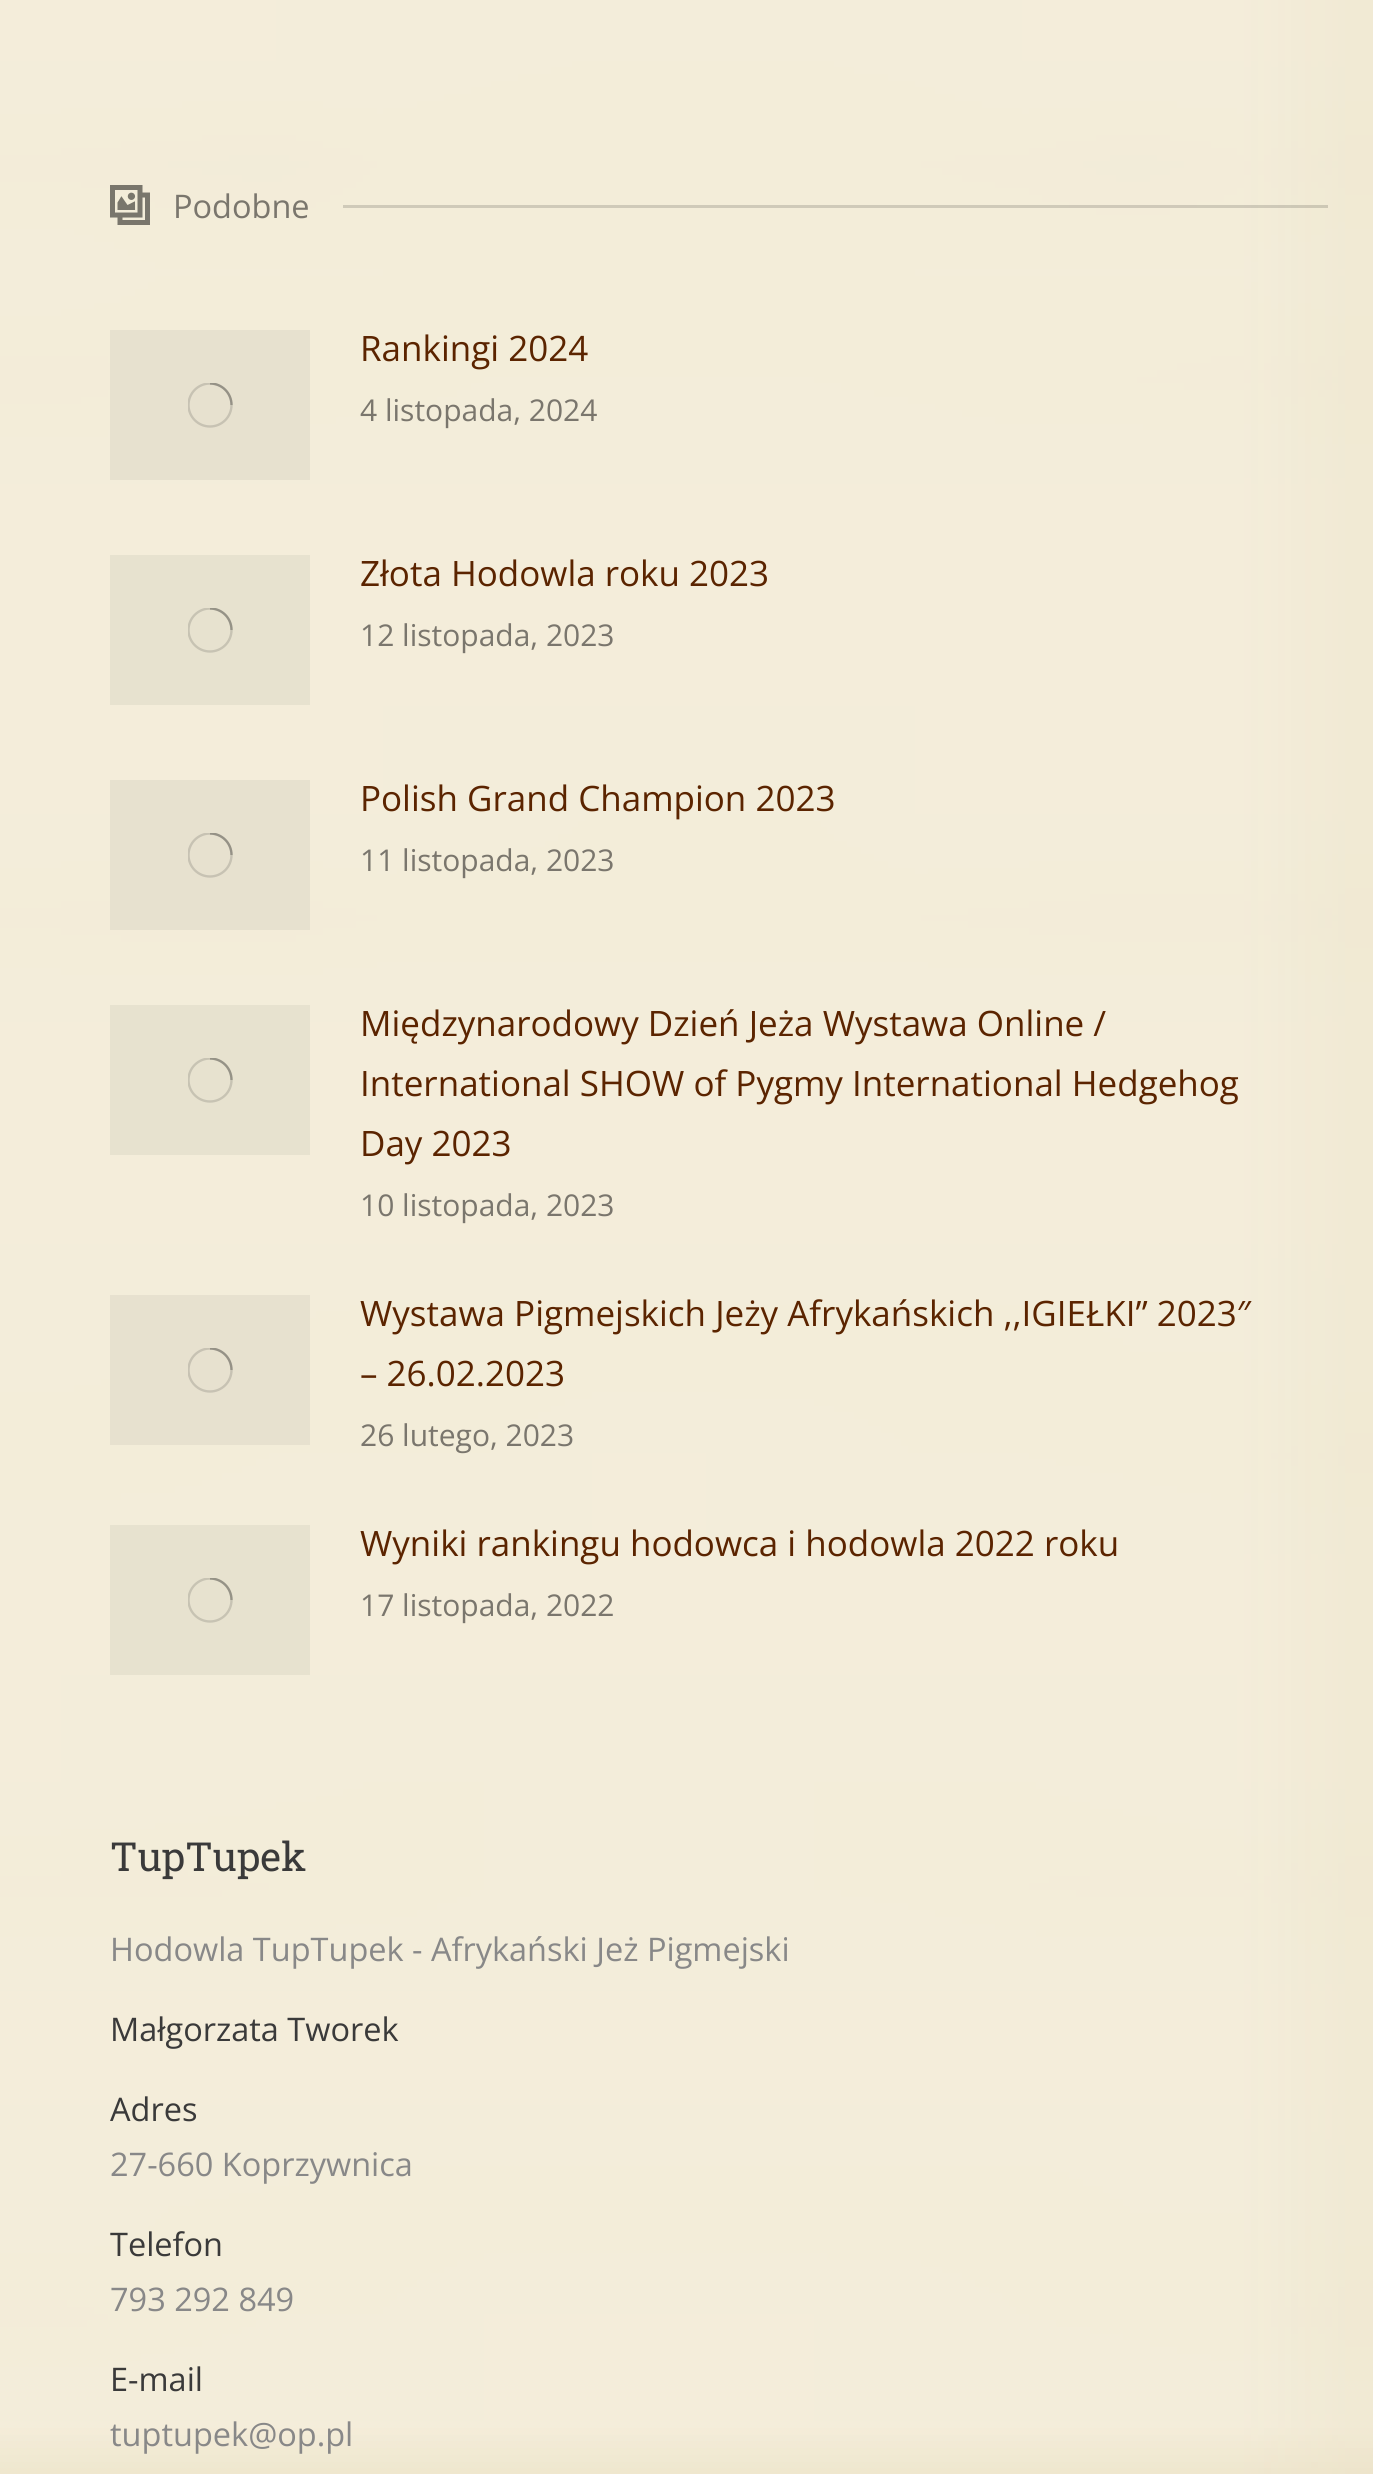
import math
import cairo

surface = cairo.ImageSurface(cairo.FORMAT_RGB24, 1373, 2474)
ctx = cairo.Context(surface)
options = cairo.FontOptions()
options.set_hint_metrics(cairo.HINT_METRICS_OFF)
options.set_hint_style(cairo.HINT_STYLE_NONE)
ctx.set_font_options(options)
ctx.set_miter_limit(4)


def set_color(code):
    ctx.set_source_rgb(*(v / 255 for v in bytes.fromhex(code[-6:])))


def draw_text(x, y, s, family, size, color, bold=False, italic=False):
    ctx.select_font_face(family, cairo.FONT_SLANT_ITALIC if italic else cairo.FONT_SLANT_NORMAL, cairo.FONT_WEIGHT_BOLD if bold else cairo.FONT_WEIGHT_NORMAL)
    ctx.set_font_size(size)
    set_color(color)
    ctx.move_to(x, y)
    ctx.show_text(s)


def fill_rect(x, y, w, h, color):
    set_color(color)
    ctx.rectangle(x, y, w, h)
    ctx.fill()


def draw_image(path, x, y, w, h):
    ctx.save()
    ctx.set_source_surface(cairo.ImageSurface.create_from_png(path), x, y)
    ctx.rectangle(x, y, w, h)
    ctx.fill()
    ctx.restore()


set_color("#e8dec0")
ctx.paint()
draw_image("assets/img1.png", 0, 0, 1373, 2474)
draw_image("assets/img2.png", 110, 185, 40, 40)
draw_text(173, 218, "Podobne", "Open Sans", 32.5, "#7a766d")
ctx.set_source_rgba(0, 0, 0, 0.15)
ctx.rectangle(343, 205, 985, 3)
ctx.fill()
fill_rect(110, 330, 200, 150, "#e7e1cf")
ctx.save()
ctx.rectangle(188, 383, 45, 45)
ctx.clip()
ctx.arc(210, 405, 21.5, 0, 2 * math.pi)
set_color("#c7c2b3")
ctx.set_line_width(2.4)
ctx.stroke()
ctx.new_path()
ctx.move_to(231.5, 405)
ctx.curve_to(231.5, 393, 222, 383.5, 210, 383.5)
ctx.set_source_rgba(0, 0, 0, 0.25)
ctx.stroke()
ctx.restore()
draw_text(360, 361, "Rankingi 2024", "Open Sans", 35, "#5b2400")
draw_text(360, 421, "4 listopada, 2024", "Open Sans", 30, "#7a766d")
fill_rect(110, 555, 200, 150, "#e7e2cf")
ctx.save()
ctx.rectangle(188, 608, 45, 45)
ctx.clip()
ctx.arc(210, 630, 21.5, 0, 2 * math.pi)
set_color("#c7c3b3")
ctx.set_line_width(2.4)
ctx.stroke()
ctx.new_path()
ctx.move_to(231.5, 630)
ctx.curve_to(231.5, 618, 222, 608.5, 210, 608.5)
ctx.set_source_rgba(0, 0, 0, 0.25)
ctx.stroke()
ctx.restore()
draw_text(360, 586, "Złota Hodowla roku 2023", "Open Sans", 35, "#5b2400")
draw_text(360, 646, "12 listopada, 2023", "Open Sans", 30, "#7a766d")
fill_rect(110, 780, 200, 150, "#e7e1cf")
ctx.save()
ctx.rectangle(188, 833, 45, 45)
ctx.clip()
ctx.arc(210, 855, 21.5, 0, 2 * math.pi)
set_color("#c7c2b3")
ctx.set_line_width(2.4)
ctx.stroke()
ctx.new_path()
ctx.move_to(231.5, 855)
ctx.curve_to(231.5, 843, 222, 833.5, 210, 833.5)
ctx.set_source_rgba(0, 0, 0, 0.25)
ctx.stroke()
ctx.restore()
draw_text(360, 811, "Polish Grand Champion 2023", "Open Sans", 35, "#5b2400")
draw_text(360, 871, "11 listopada, 2023", "Open Sans", 30, "#7a766d")
fill_rect(110, 1005, 200, 150, "#e7e2cf")
ctx.save()
ctx.rectangle(188, 1058, 45, 45)
ctx.clip()
ctx.arc(210, 1080, 21.5, 0, 2 * math.pi)
set_color("#c7c3b3")
ctx.set_line_width(2.4)
ctx.stroke()
ctx.new_path()
ctx.move_to(231.5, 1080)
ctx.curve_to(231.5, 1068, 222, 1058.5, 210, 1058.5)
ctx.set_source_rgba(0, 0, 0, 0.25)
ctx.stroke()
ctx.restore()
draw_text(360, 1036, "Międzynarodowy Dzień Jeża Wystawa Online /", "Open Sans", 35, "#5b2400")
draw_text(360, 1096, "International SHOW of Pygmy International Hedgehog", "Open Sans", 35, "#5b2400")
draw_text(360, 1156, "Day 2023", "Open Sans", 35, "#5b2400")
draw_text(360, 1216, "10 listopada, 2023", "Open Sans", 30, "#7a766d")
fill_rect(110, 1295, 200, 150, "#e7e1cf")
ctx.save()
ctx.rectangle(188, 1348, 45, 45)
ctx.clip()
ctx.arc(210, 1370, 21.5, 0, 2 * math.pi)
set_color("#c7c2b3")
ctx.set_line_width(2.4)
ctx.stroke()
ctx.new_path()
ctx.move_to(231.5, 1370)
ctx.curve_to(231.5, 1358, 222, 1348.5, 210, 1348.5)
ctx.set_source_rgba(0, 0, 0, 0.25)
ctx.stroke()
ctx.restore()
draw_text(360, 1326, "Wystawa Pigmejskich Jeży Afrykańskich ,,IGIEŁKI” 2023″", "Open Sans", 35, "#5b2400")
draw_text(360, 1386, "– 26.02.2023", "Open Sans", 35, "#5b2400")
draw_text(360, 1446, "26 lutego, 2023", "Open Sans", 30, "#7a766d")
fill_rect(110, 1525, 200, 150, "#e7e2cf")
ctx.save()
ctx.rectangle(188, 1578, 45, 45)
ctx.clip()
ctx.arc(210, 1600, 21.5, 0, 2 * math.pi)
set_color("#c7c3b3")
ctx.set_line_width(2.4)
ctx.stroke()
ctx.new_path()
ctx.move_to(231.5, 1600)
ctx.curve_to(231.5, 1588, 222, 1578.5, 210, 1578.5)
ctx.set_source_rgba(0, 0, 0, 0.25)
ctx.stroke()
ctx.restore()
draw_text(360, 1556, "Wyniki rankingu hodowca i hodowla 2022 roku", "Open Sans", 35, "#5b2400")
draw_text(360, 1616, "17 listopada, 2022", "Open Sans", 30, "#7a766d")
draw_text(110, 1871, "TupTupek", "Roboto Slab", 40, "#3a3a3a")
draw_text(110, 1961, "Hodowla TupTupek - Afrykański Jeż Pigmejski", "Open Sans", 32.5, "#888888")
draw_text(110, 2041, "Małgorzata Tworek", "Open Sans", 32.5, "#3a3a3a")
draw_text(110, 2121, "Adres", "Open Sans", 32.5, "#3a3a3a")
draw_text(110, 2176, "27-660 Koprzywnica", "Open Sans", 32.5, "#888888")
draw_text(110, 2256, "Telefon", "Open Sans", 32.5, "#3a3a3a")
draw_text(110, 2311, "793 292 849", "Open Sans", 32.5, "#888888")
draw_text(110, 2391, "E-mail", "Open Sans", 32.5, "#3a3a3a")
draw_text(110, 2446, "tuptupek@op.pl", "Open Sans", 32.5, "#888888")
surface.write_to_png("output.png")
